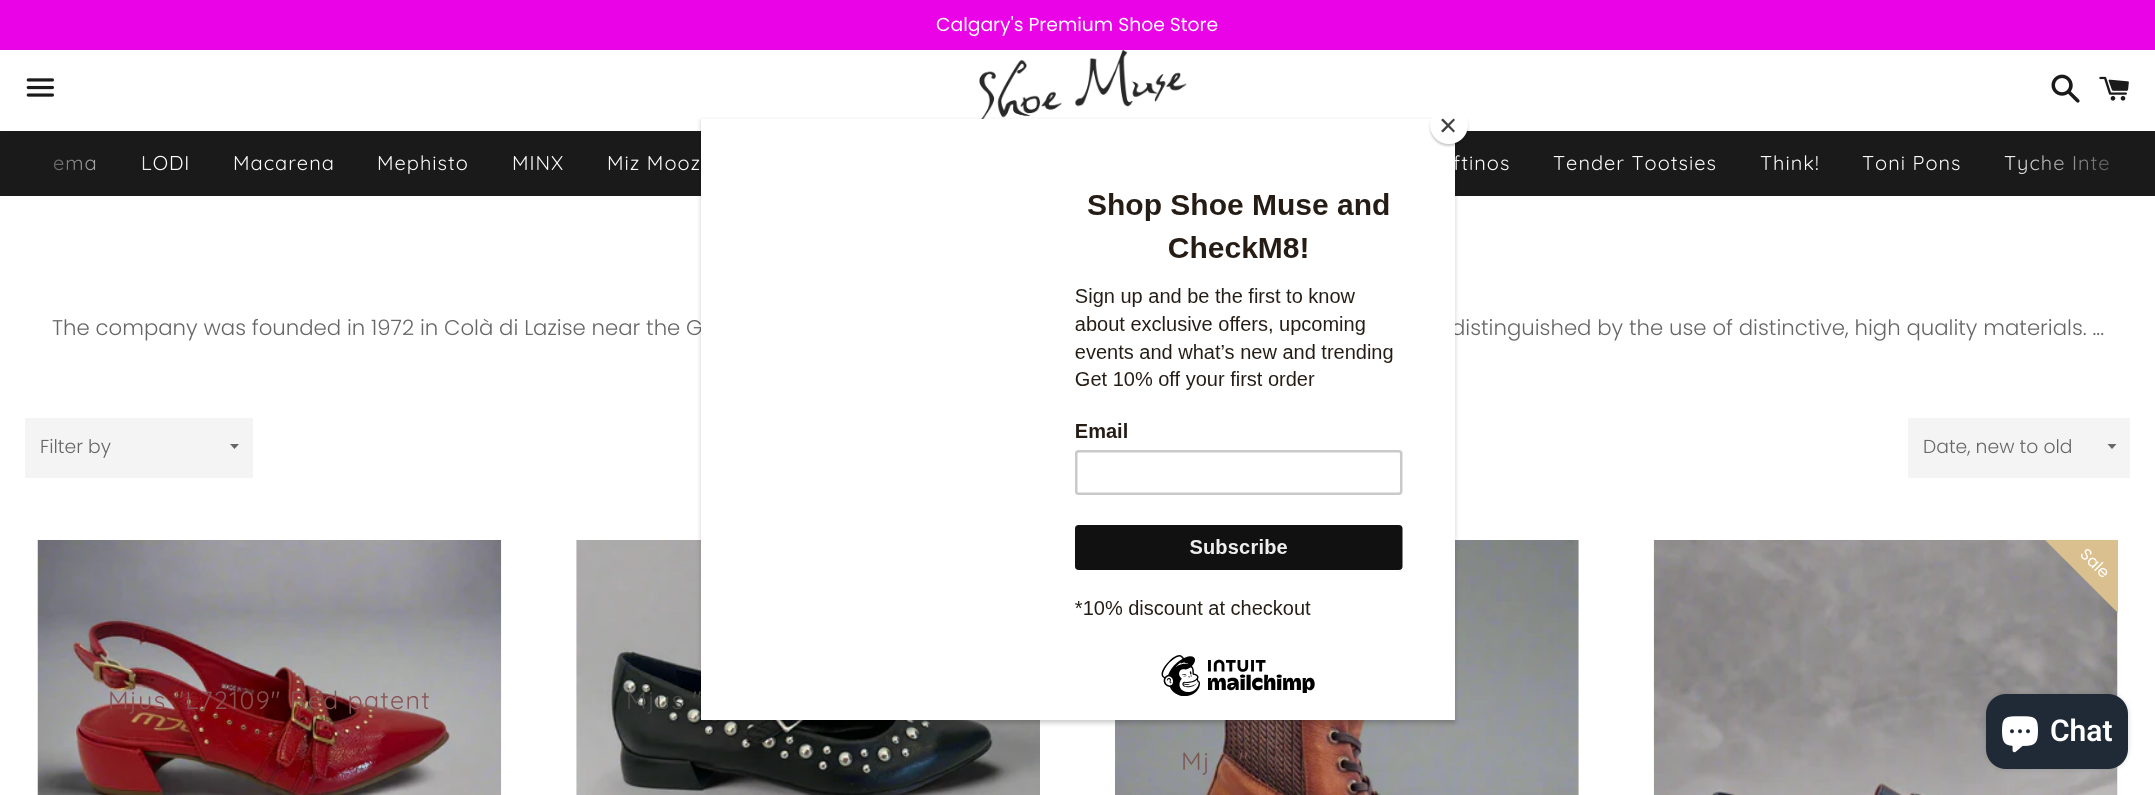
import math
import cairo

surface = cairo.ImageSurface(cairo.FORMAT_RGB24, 2155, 795)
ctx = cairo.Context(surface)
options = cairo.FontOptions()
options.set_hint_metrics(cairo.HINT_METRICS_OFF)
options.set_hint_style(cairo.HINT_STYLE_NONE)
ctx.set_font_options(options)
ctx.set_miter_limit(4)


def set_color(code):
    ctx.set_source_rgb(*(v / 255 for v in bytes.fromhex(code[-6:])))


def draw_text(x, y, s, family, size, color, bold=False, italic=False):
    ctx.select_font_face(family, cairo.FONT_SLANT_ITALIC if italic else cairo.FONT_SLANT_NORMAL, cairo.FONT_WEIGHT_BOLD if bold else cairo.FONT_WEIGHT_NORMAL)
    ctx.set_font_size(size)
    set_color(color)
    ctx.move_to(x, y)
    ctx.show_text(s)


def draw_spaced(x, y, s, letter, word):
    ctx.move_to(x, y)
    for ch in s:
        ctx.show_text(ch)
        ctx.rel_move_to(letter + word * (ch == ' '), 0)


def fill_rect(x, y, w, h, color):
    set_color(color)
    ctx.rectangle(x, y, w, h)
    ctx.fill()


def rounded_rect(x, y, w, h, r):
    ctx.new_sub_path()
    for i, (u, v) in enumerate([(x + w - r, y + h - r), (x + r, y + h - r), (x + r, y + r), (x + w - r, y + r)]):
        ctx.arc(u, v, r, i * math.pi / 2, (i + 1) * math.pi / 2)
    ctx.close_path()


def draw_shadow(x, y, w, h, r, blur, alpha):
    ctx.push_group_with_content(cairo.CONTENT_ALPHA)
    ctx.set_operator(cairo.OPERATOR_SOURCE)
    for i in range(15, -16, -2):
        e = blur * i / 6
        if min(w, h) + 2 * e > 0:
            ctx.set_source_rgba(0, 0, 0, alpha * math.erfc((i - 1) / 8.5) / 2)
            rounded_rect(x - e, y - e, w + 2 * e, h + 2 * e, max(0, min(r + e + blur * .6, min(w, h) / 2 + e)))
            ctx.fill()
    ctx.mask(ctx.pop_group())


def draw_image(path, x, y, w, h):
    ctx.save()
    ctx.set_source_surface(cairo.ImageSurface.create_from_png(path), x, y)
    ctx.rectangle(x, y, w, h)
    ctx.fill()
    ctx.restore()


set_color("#ffffff")
ctx.paint()
fill_rect(0, 0, 2155, 50, "#e903e6")
draw_text(936, 31, "Calgary's Premium Shoe Store", "Poppins", 18.75, "#ffffff")
draw_image("assets/img1.png", 26, 78, 28, 19)
draw_image("assets/img2.png", 979, 50, 208, 69)
draw_image("assets/img3.png", 2051, 74, 29, 29)
draw_image("assets/img4.png", 2099, 76, 30, 25)
fill_rect(1, 131, 2153, 65, "#1a1a1a")
ctx.select_font_face("Quicksand")
ctx.set_font_size(20)
set_color("#ffffff")
draw_spaced(53, 170, "ema", 1, 0)
draw_spaced(141, 170, "LODI", 1, 0)
gradient = cairo.LinearGradient(156, 164, 0, 164)
gradient.add_color_stop_rgba(0, 0.102, 0.102, 0.102, 0)
gradient.add_color_stop_rgba(1, 0.102, 0.102, 0.102, 1)
ctx.set_source(gradient)
ctx.rectangle(0, 131, 151, 65)
ctx.fill()
set_color("#ffffff")
draw_spaced(2004, 170, "Tyche Inte", 1, 0)
gradient = cairo.LinearGradient(1999, 164, 2155, 164)
gradient.add_color_stop_rgba(0, 0.102, 0.102, 0.102, 0)
gradient.add_color_stop_rgba(1, 0.102, 0.102, 0.102, 1)
ctx.set_source(gradient)
ctx.rectangle(2005, 131, 150, 65)
ctx.fill()
set_color("#ffffff")
draw_spaced(233, 170, "Macarena", 1, 0)
draw_spaced(377, 170, "Mephisto", 1, 0)
draw_spaced(512, 170, "MINX", 1, 0)
draw_spaced(607, 170, "Miz Mooz", 1, 0)
draw_spaced(1453, 170, "ftinos", 1, 0)
draw_spaced(1553, 170, "Tender Tootsies", 1, 0)
draw_spaced(1760, 170, "Think!", 1, 0)
draw_spaced(1862, 170, "Toni Pons", 1, 0)
draw_text(52, 335, "The company was founded in 1972 in Colà di Lazise near the G", "Poppins Light", 21.25, "#666666")
draw_text(1451, 335, "distinguished by the use of distinctive, high quality materials. ...", "Poppins Light", 21.25, "#666666")
fill_rect(25, 418, 228, 60, "#f4f4f4")
set_color("#666666")
ctx.new_path()
ctx.move_to(230, 444)
ctx.line_to(234.5, 449)
ctx.line_to(239, 444)
ctx.close_path()
ctx.fill()
draw_text(40, 453, "Filter by", "Poppins Light", 18.75, "#666666")
fill_rect(1908, 418, 222, 60, "#f4f4f4")
set_color("#666666")
ctx.new_path()
ctx.move_to(2107.5, 444)
ctx.line_to(2112, 449)
ctx.line_to(2116.5, 444)
ctx.close_path()
ctx.fill()
draw_text(1923, 453, "Date, new to old", "Poppins Light", 18.75, "#666666")
draw_image("assets/img5.png", 1653, 540, 465, 255)
ctx.save()
ctx.rectangle(1654, 540, 464, 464)
ctx.clip()
set_color("#dac08e")
ctx.new_path()
ctx.move_to(2050, 431)
ctx.line_to(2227, 607)
ctx.line_to(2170, 665)
ctx.line_to(1993, 488)
ctx.close_path()
ctx.fill()
ctx.restore()
ctx.save()
ctx.translate(2079, 555)
ctx.rotate(45 * math.pi / 180)
draw_text(0, 0, "Sale", "Poppins", 16, "#ffffff")
ctx.restore()
draw_image("assets/img6.png", 37, 540, 465, 255)
ctx.select_font_face("Quicksand")
ctx.set_font_size(25)
set_color("#895354")
draw_spaced(108, 709, "Mjus \"L72109\" Red patent", 1.25, 0)
draw_image("assets/img7.png", 576, 540, 464, 255)
set_color("#484a49")
draw_spaced(626, 709, "Mjus \"", 1.25, 0)
draw_image("assets/img8.png", 1115, 540, 464, 255)
set_color("#795850")
draw_spaced(1181, 770, "Mj", 1.25, 0)
draw_spaced(1239, 770, "\"", 1.25, 0)
set_color("#000000")
draw_shadow(701, 121, 754, 602, 0, 2.5, 0.2)
draw_image("assets/img9.png", 701, 119, 754, 601)
draw_shadow(1430, 109, 38, 37, 18.5, 1, 0.2)
set_color("#ffffff")
ctx.arc(1449, 125, 19, 0, 2 * math.pi)
ctx.fill()
set_color("#414141")
ctx.new_path()
ctx.move_to(1453.5, 118.5)
ctx.line_to(1455, 120)
ctx.line_to(1443, 132.5)
ctx.line_to(1441, 131)
ctx.close_path()
ctx.fill()
ctx.new_path()
ctx.move_to(1441, 120)
ctx.line_to(1443, 118.5)
ctx.line_to(1455, 131)
ctx.line_to(1453.5, 132.5)
ctx.close_path()
ctx.fill()
set_color("#000000")
draw_shadow(1986, 694, 142, 75, 20, 3, 0.15)
set_color("#202a36")
rounded_rect(1986, 694, 142, 75, 20)
ctx.fill()
draw_image("assets/img10.png", 2002, 716, 36, 37)
draw_text(2050, 741, "Chat", "Roboto SemiBold", 30, "#ffffff")
surface.write_to_png("output.png")
